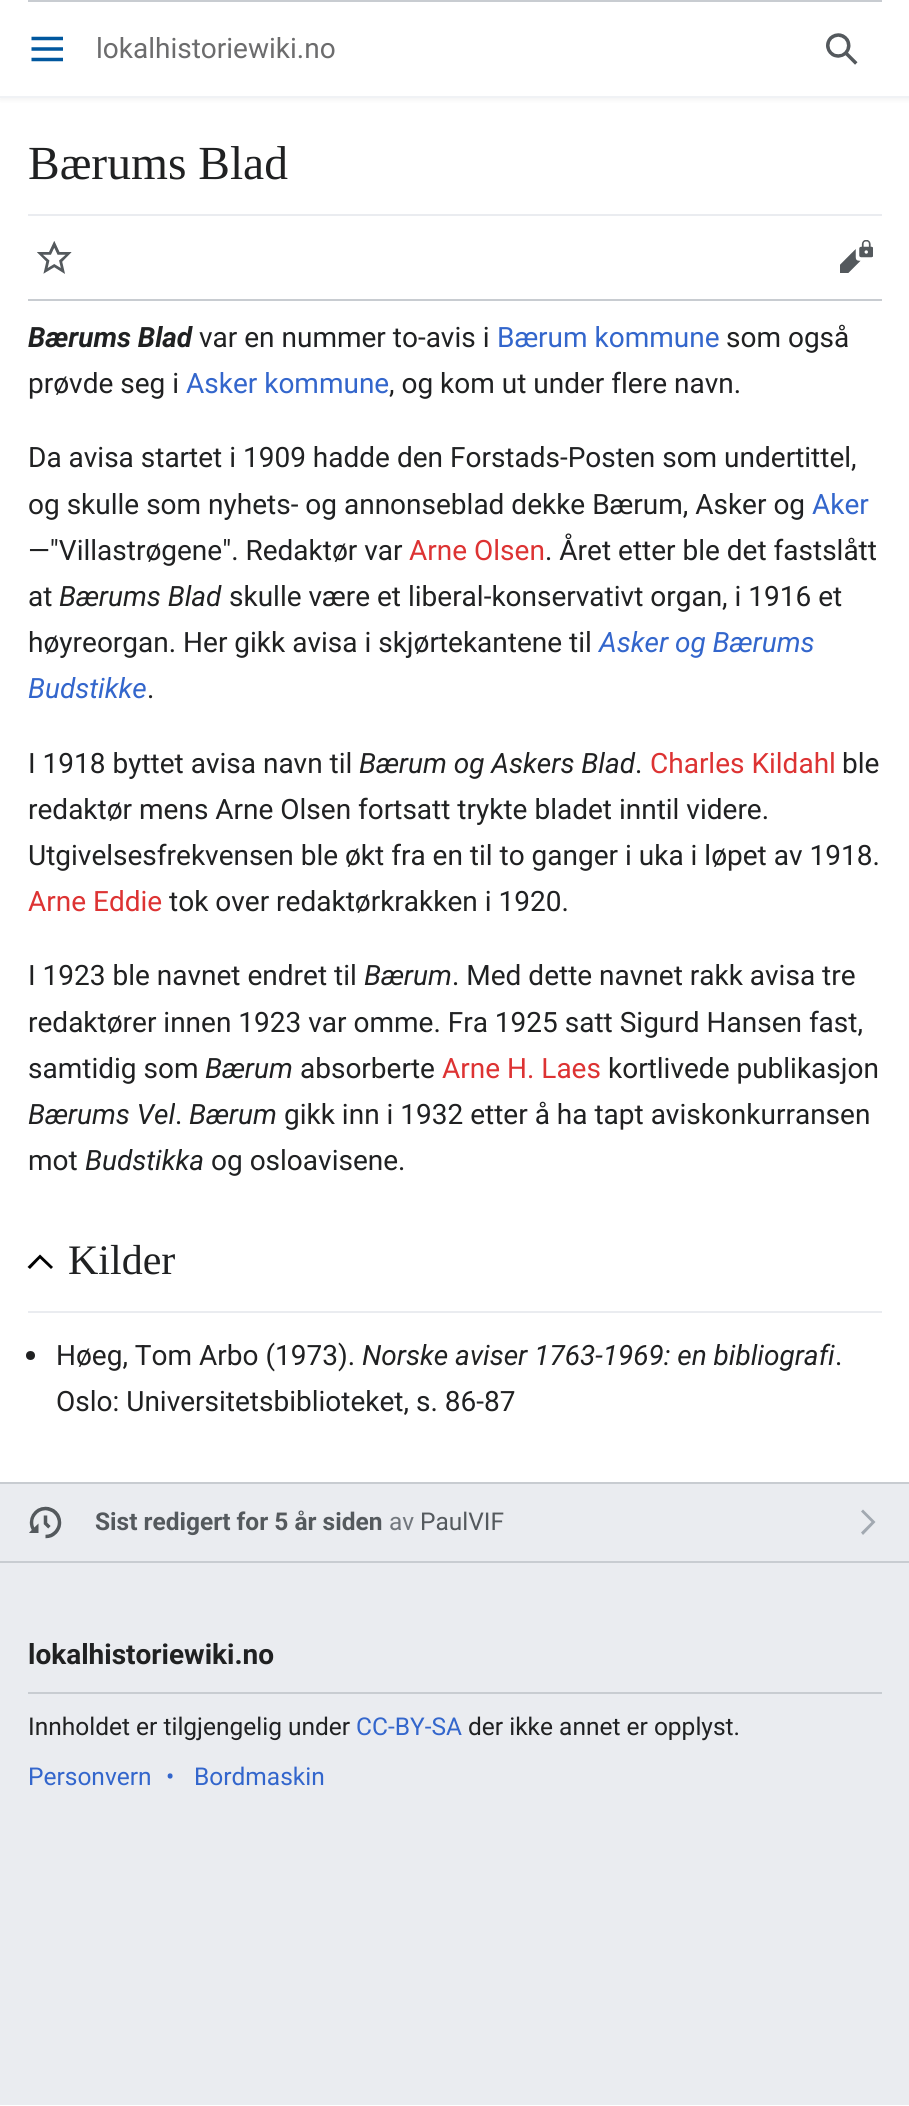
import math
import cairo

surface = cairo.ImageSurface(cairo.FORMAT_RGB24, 909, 2106)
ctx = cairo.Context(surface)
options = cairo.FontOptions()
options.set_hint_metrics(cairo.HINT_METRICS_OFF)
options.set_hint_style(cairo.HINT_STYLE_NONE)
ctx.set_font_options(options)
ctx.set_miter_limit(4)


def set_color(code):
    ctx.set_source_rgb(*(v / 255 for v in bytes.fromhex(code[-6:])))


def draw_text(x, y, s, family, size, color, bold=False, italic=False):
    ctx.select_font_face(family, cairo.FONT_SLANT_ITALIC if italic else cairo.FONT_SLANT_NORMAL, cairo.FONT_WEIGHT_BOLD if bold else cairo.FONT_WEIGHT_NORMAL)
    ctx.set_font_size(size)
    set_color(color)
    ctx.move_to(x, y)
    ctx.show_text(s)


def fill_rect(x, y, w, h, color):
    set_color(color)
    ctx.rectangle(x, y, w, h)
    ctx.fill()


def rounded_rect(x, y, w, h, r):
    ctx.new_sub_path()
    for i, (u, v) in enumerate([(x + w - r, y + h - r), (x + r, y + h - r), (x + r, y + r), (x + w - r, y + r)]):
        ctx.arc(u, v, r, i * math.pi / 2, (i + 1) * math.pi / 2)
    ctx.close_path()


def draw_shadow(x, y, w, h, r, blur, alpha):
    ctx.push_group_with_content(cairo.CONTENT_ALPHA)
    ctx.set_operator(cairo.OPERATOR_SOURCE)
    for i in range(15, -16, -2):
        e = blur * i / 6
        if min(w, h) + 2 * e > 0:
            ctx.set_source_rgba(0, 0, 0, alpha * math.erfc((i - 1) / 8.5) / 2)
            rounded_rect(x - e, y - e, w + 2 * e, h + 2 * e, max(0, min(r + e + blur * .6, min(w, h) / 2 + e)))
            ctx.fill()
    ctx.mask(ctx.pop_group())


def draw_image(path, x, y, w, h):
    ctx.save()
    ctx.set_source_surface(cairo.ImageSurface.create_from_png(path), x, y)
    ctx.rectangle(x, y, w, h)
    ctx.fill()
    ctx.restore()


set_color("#ffffff")
ctx.paint()
fill_rect(0, 1484, 909, 621, "#eaecf0")
set_color("#000000")
draw_shadow(0, 2, 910, 98, 0, 2, 0.05)
fill_rect(0, 0, 909, 96, "#ffffff")
fill_rect(0, 96, 909, 2, "#f0f2f5")
fill_rect(28, 0, 854, 2, "#c8ccd1")
draw_image("assets/img1.png", 31, 36, 32, 26)
draw_text(96, 58, "lokalhistoriewiki.no", "Roboto", 28, "#6c6c6d")
draw_image("assets/img2.png", 826, 33, 32, 32)
draw_text(28, 179, "Bærums Blad", "Liberation Serif", 47.5, "#202122")
fill_rect(28, 214, 854, 2, "#eaecf0")
fill_rect(28, 299, 854, 2, "#c8ccd1")
draw_image("assets/img3.png", 37, 241, 35, 33)
draw_image("assets/img4.png", 840, 240, 33, 33)
draw_text(28, 347, "Bærums Blad", "Roboto", 28, "#202122", bold=True, italic=True)
draw_text(199, 347, "var en nummer to-avis i", "Roboto", 28, "#202122")
draw_text(497, 347, "Bærum kommune", "Roboto", 28, "#3366cc")
draw_text(726, 347, "som også", "Roboto", 28, "#202122")
draw_text(28, 393, "prøvde seg i", "Roboto", 28, "#202122")
draw_text(186, 393, "Asker kommune", "Roboto", 28, "#3366cc")
draw_text(389, 393, ", og kom ut under flere navn.", "Roboto", 28, "#202122")
draw_text(28, 467, "Da avisa startet i 1909 hadde den Forstads-Posten som undertittel,", "Roboto", 28, "#202122")
draw_text(28, 514, "og skulle som nyhets- og annonseblad dekke Bærum, Asker og", "Roboto", 28, "#202122")
draw_text(812, 514, "Aker", "Roboto", 28, "#3366cc")
draw_text(28, 560, "—\"Villastrøgene\". Redaktør var", "Roboto", 28, "#202122")
draw_text(409, 560, "Arne Olsen", "Roboto", 28, "#dd3333")
draw_text(545, 560, ". Året etter ble det fastslått", "Roboto", 28, "#202122")
draw_text(28, 606, "at", "Roboto", 28, "#202122")
draw_text(59, 606, "Bærums Blad", "Roboto", 28, "#202122", italic=True)
draw_text(229, 606, "skulle være et liberal-konservativt organ, i 1916 et", "Roboto", 28, "#202122")
draw_text(28, 652, "høyreorgan. Her gikk avisa i skjørtekantene til", "Roboto", 28, "#202122")
draw_text(599, 652, "Asker og Bærums", "Roboto", 28, "#3366cc", italic=True)
draw_text(28, 698, "Budstikke", "Roboto", 28, "#3366cc", italic=True)
draw_text(147, 698, ".", "Roboto", 28, "#202122")
draw_text(28, 773, "I 1918 byttet avisa navn til", "Roboto", 28, "#202122")
draw_text(359, 773, "Bærum og Askers Blad", "Roboto", 28, "#202122", italic=True)
draw_text(635, 773, ".", "Roboto", 28, "#202122")
draw_text(650, 773, "Charles Kildahl", "Roboto", 28, "#dd3333")
draw_text(842, 773, "ble", "Roboto", 28, "#202122")
draw_text(28, 819, "redaktør mens Arne Olsen fortsatt trykte bladet inntil videre.", "Roboto", 28, "#202122")
draw_text(28, 865, "Utgivelsesfrekvensen ble økt fra en til to ganger i uka i løpet av 1918.", "Roboto", 28, "#202122")
draw_text(28, 911, "Arne Eddie", "Roboto", 28, "#dd3333")
draw_text(169, 911, "tok over redaktørkrakken i 1920.", "Roboto", 28, "#202122")
draw_text(28, 985, "I 1923 ble navnet endret til", "Roboto", 28, "#202122")
draw_text(364, 985, "Bærum", "Roboto", 28, "#202122", italic=True)
draw_text(452, 985, ". Med dette navnet rakk avisa tre", "Roboto", 28, "#202122")
draw_text(28, 1032, "redaktører innen 1923 var omme. Fra 1925 satt Sigurd Hansen fast,", "Roboto", 28, "#202122")
draw_text(28, 1078, "samtidig som", "Roboto", 28, "#202122")
draw_text(205, 1078, "Bærum", "Roboto", 28, "#202122", italic=True)
draw_text(300, 1078, "absorberte", "Roboto", 28, "#202122")
draw_text(442, 1078, "Arne H. Laes", "Roboto", 28, "#dd3333")
draw_text(608, 1078, "kortlivede publikasjon", "Roboto", 28, "#202122")
draw_text(28, 1124, "Bærums Vel", "Roboto", 28, "#202122", italic=True)
draw_text(175, 1124, ".", "Roboto", 28, "#202122")
draw_text(189, 1124, "Bærum", "Roboto", 28, "#202122", italic=True)
draw_text(284, 1124, "gikk inn i 1932 etter å ha tapt aviskonkurransen", "Roboto", 28, "#202122")
draw_text(28, 1170, "mot", "Roboto", 28, "#202122")
draw_text(85, 1170, "Budstikka", "Roboto", 28, "#202122", italic=True)
draw_text(211, 1170, "og osloavisene.", "Roboto", 28, "#202122")
fill_rect(28, 1311, 854, 2, "#eaecf0")
set_color("#000000")
ctx.new_path()
ctx.move_to(51, 1269)
ctx.line_to(40, 1258.5)
ctx.line_to(30, 1269)
ctx.line_to(27.5, 1267)
ctx.line_to(40, 1254.5)
ctx.line_to(53, 1267)
ctx.close_path()
ctx.fill()
draw_text(68, 1274, "Kilder", "Liberation Serif", 42, "#202122")
ctx.new_path()
ctx.arc(30.5, 1355.5, 4.5, 0, 2 * math.pi)
ctx.fill()
draw_text(56, 1365, "Høeg, Tom Arbo (1973).", "Roboto", 28, "#202122")
draw_text(362, 1365, "Norske aviser 1763-1969: en bibliografi", "Roboto", 28, "#202122", italic=True)
draw_text(835, 1365, ".", "Roboto", 28, "#202122")
draw_text(56, 1411, "Oslo: Universitetsbiblioteket, s. 86-87", "Roboto", 28, "#202122")
fill_rect(0, 1482, 909, 2, "#c8ccd1")
fill_rect(0, 1561, 909, 2, "#c8ccd1")
draw_image("assets/img5.png", 29, 1506, 33, 33)
draw_text(95, 1530, "Sist redigert for 5 år siden", "Roboto", 24.5, "#54595d", bold=True)
draw_text(389, 1530, "av", "Roboto", 24.5, "#72777d")
draw_text(420, 1530, "PaulVIF", "Roboto", 24.5, "#54595d")
set_color("#a2a9b1")
ctx.new_path()
ctx.move_to(861, 1511.5)
ctx.line_to(871.5, 1522)
ctx.line_to(861, 1532.5)
ctx.line_to(863, 1535)
ctx.line_to(875.5, 1522)
ctx.line_to(863, 1509.5)
ctx.close_path()
ctx.fill()
fill_rect(28, 1692, 854, 2, "#c8ccd1")
draw_text(28, 1664, "lokalhistoriewiki.no", "Roboto", 28, "#202122", bold=True)
draw_text(28, 1735, "Innholdet er tilgjengelig under", "Roboto", 24.5, "#202122")
draw_text(356, 1735, "CC-BY-SA", "Roboto", 24.5, "#3366cc")
draw_text(468, 1735, "der ikke annet er opplyst.", "Roboto", 24.5, "#202122")
draw_text(28, 1785, "Personvern", "Roboto", 24.5, "#3366cc")
draw_text(166, 1785, "•", "Roboto", 24.5, "#3366cc")
draw_text(194, 1785, "Bordmaskin", "Roboto", 24.5, "#3366cc")
surface.write_to_png("output.png")
